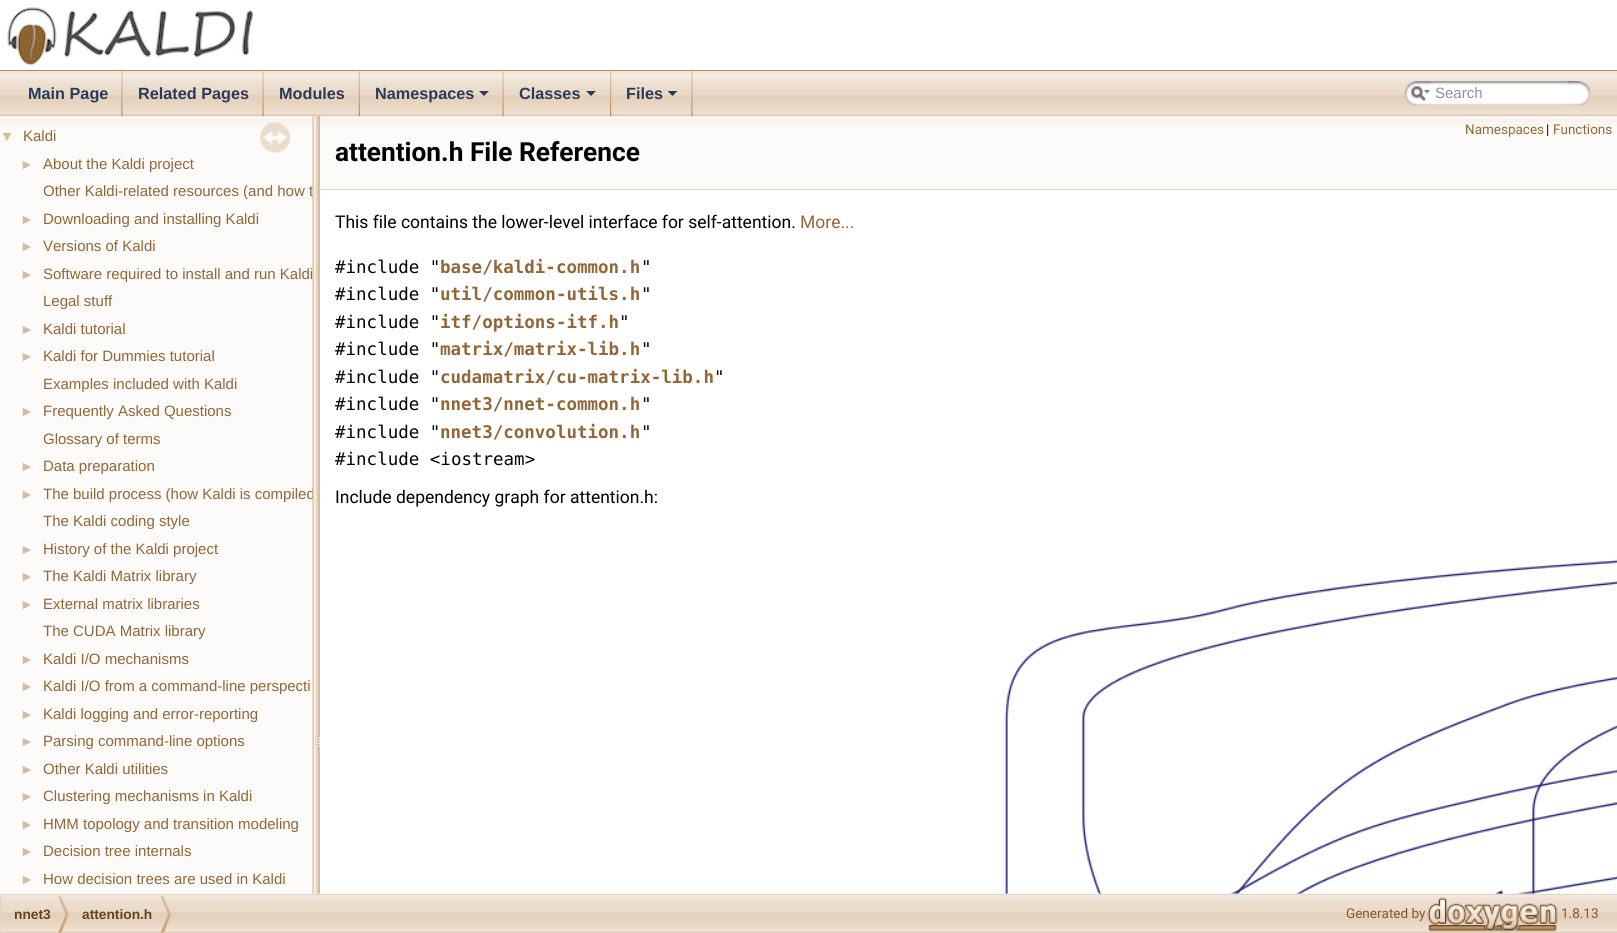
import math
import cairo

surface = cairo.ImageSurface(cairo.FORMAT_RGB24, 1617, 933)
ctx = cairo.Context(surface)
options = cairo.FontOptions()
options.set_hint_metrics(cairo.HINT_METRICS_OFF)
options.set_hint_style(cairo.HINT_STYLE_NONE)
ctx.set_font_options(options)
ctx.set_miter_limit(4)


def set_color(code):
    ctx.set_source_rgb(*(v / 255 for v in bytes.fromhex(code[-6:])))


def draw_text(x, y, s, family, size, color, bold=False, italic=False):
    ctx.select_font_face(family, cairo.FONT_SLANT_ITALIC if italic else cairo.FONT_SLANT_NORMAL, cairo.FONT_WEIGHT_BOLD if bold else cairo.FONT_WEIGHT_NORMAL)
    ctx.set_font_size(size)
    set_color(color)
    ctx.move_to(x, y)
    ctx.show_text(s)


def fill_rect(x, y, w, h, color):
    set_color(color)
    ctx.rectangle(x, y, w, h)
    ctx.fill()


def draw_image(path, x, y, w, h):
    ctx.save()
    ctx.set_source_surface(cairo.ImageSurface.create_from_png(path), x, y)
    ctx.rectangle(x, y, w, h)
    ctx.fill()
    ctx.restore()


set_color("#ffffff")
ctx.paint()
fill_rect(0, 70, 1617, 1, "#bb854c")
draw_image("assets/img1.png", 7, 7, 247, 59)
draw_image("assets/img17.png", 1004, 559, 613, 335)
draw_image("assets/img18.png", 1, 893, 1616, 40)
fill_rect(0, 116, 313, 778, "#fcfbf9")
draw_image("assets/img13.png", 0, 116, 313, 11)
draw_text(43, 196, "Other Kaldi-related resources (and how t", "Liberation Sans", 15, "#926637")
draw_text(43, 499, "The build process (how Kaldi is compiled", "Liberation Sans", 15, "#926637")
draw_image("assets/img15.png", 312, 116, 8, 778)
fill_rect(320, 116, 1297, 73, "#fcfbf9")
draw_image("assets/img2.png", 0, 71, 1617, 46)
draw_image("assets/img3.png", 121, 71, 2, 46)
draw_text(28, 99, "Main Page", "Liberation Sans", 16.25, "#283a5d", bold=True)
draw_image("assets/img4.png", 262, 71, 2, 46)
draw_text(138, 99, "Related Pages", "Liberation Sans", 16.25, "#283a5d", bold=True)
draw_image("assets/img5.png", 358, 71, 2, 46)
draw_text(279, 99, "Modules", "Liberation Sans", 16.25, "#283a5d", bold=True)
draw_image("assets/img6.png", 502, 71, 2, 46)
draw_text(375, 99, "Namespaces", "Liberation Sans", 16.25, "#283a5d", bold=True)
ctx.new_path()
ctx.move_to(479, 91)
ctx.line_to(489, 91)
ctx.line_to(484, 96)
ctx.close_path()
ctx.fill()
draw_image("assets/img7.png", 610, 71, 2, 46)
draw_text(519, 99, "Classes", "Liberation Sans", 16.25, "#283a5d", bold=True)
ctx.new_path()
ctx.move_to(586, 91)
ctx.line_to(596, 91)
ctx.line_to(591, 96)
ctx.close_path()
ctx.fill()
draw_image("assets/img8.png", 691, 71, 2, 46)
draw_text(626, 99, "Files", "Liberation Sans", 16.25, "#283a5d", bold=True)
ctx.new_path()
ctx.move_to(667.5, 91)
ctx.line_to(677.5, 91)
ctx.line_to(672.5, 96)
ctx.close_path()
ctx.fill()
draw_image("assets/img9.png", 1405, 81, 25, 24)
draw_image("assets/img10.png", 1411, 86, 19, 16)
draw_image("assets/img11.png", 1430, 81, 144, 24)
draw_text(1435, 98, "Search", "Liberation Sans", 15, "#909090")
draw_image("assets/img12.png", 1567, 81, 23, 24)
draw_image("assets/img14.png", 260, 122, 30, 31)
draw_text(0, 141, "▼", "Liberation Sans", 14, "#d8b998")
draw_text(23, 141, "Kaldi", "Liberation Sans", 15, "#926637")
draw_text(20, 169, "►", "Liberation Sans", 14, "#d8b998")
draw_text(43, 169, "About the Kaldi project", "Liberation Sans", 15, "#926637")
draw_text(20, 224, "►", "Liberation Sans", 14, "#d8b998")
draw_text(43, 224, "Downloading and installing Kaldi", "Liberation Sans", 15, "#926637")
draw_text(20, 251, "►", "Liberation Sans", 14, "#d8b998")
draw_text(43, 251, "Versions of Kaldi", "Liberation Sans", 15, "#926637")
draw_text(20, 279, "►", "Liberation Sans", 14, "#d8b998")
draw_text(43, 279, "Software required to install and run Kaldi", "Liberation Sans", 15, "#926637")
draw_text(43, 306, "Legal stuff", "Liberation Sans", 15, "#926637")
draw_text(20, 334, "►", "Liberation Sans", 14, "#d8b998")
draw_text(43, 334, "Kaldi tutorial", "Liberation Sans", 15, "#926637")
draw_text(20, 361, "►", "Liberation Sans", 14, "#d8b998")
draw_text(43, 361, "Kaldi for Dummies tutorial", "Liberation Sans", 15, "#926637")
draw_text(43, 389, "Examples included with Kaldi", "Liberation Sans", 15, "#926637")
draw_text(20, 416, "►", "Liberation Sans", 14, "#d8b998")
draw_text(43, 416, "Frequently Asked Questions", "Liberation Sans", 15, "#926637")
draw_text(43, 444, "Glossary of terms", "Liberation Sans", 15, "#926637")
draw_text(20, 471, "►", "Liberation Sans", 14, "#d8b998")
draw_text(43, 471, "Data preparation", "Liberation Sans", 15, "#926637")
draw_text(20, 499, "►", "Liberation Sans", 14, "#d8b998")
draw_text(43, 526, "The Kaldi coding style", "Liberation Sans", 15, "#926637")
draw_text(20, 554, "►", "Liberation Sans", 14, "#d8b998")
draw_text(43, 554, "History of the Kaldi project", "Liberation Sans", 15, "#926637")
draw_text(20, 581, "►", "Liberation Sans", 14, "#d8b998")
draw_text(43, 581, "The Kaldi Matrix library", "Liberation Sans", 15, "#926637")
draw_text(20, 609, "►", "Liberation Sans", 14, "#d8b998")
draw_text(43, 609, "External matrix libraries", "Liberation Sans", 15, "#926637")
draw_text(43, 636, "The CUDA Matrix library", "Liberation Sans", 15, "#926637")
draw_text(20, 664, "►", "Liberation Sans", 14, "#d8b998")
draw_text(43, 664, "Kaldi I/O mechanisms", "Liberation Sans", 15, "#926637")
draw_text(20, 691, "►", "Liberation Sans", 14, "#d8b998")
draw_text(43, 691, "Kaldi I/O from a command-line perspecti", "Liberation Sans", 15, "#926637")
draw_text(20, 719, "►", "Liberation Sans", 14, "#d8b998")
draw_text(43, 719, "Kaldi logging and error-reporting", "Liberation Sans", 15, "#926637")
draw_text(20, 746, "►", "Liberation Sans", 14, "#d8b998")
draw_text(43, 746, "Parsing command-line options", "Liberation Sans", 15, "#926637")
draw_text(20, 774, "►", "Liberation Sans", 14, "#d8b998")
draw_text(43, 774, "Other Kaldi utilities", "Liberation Sans", 15, "#926637")
draw_text(20, 801, "►", "Liberation Sans", 14, "#d8b998")
draw_text(43, 801, "Clustering mechanisms in Kaldi", "Liberation Sans", 15, "#926637")
draw_text(20, 829, "►", "Liberation Sans", 14, "#d8b998")
draw_text(43, 829, "HMM topology and transition modeling", "Liberation Sans", 15, "#926637")
draw_text(20, 856, "►", "Liberation Sans", 14, "#d8b998")
draw_text(43, 856, "Decision tree internals", "Liberation Sans", 15, "#926637")
draw_text(20, 884, "►", "Liberation Sans", 14, "#d8b998")
draw_text(43, 884, "How decision trees are used in Kaldi", "Liberation Sans", 15, "#926637")
draw_image("assets/img16.png", 320, 118, 1297, 9)
fill_rect(320, 189, 1297, 1, "#e8d5c2")
draw_text(1465, 134, "Namespaces", "Roboto", 13.5, "#926637")
draw_text(1546, 134, "|", "Roboto", 13.5, "#000000")
draw_text(1553, 134, "Functions", "Roboto", 13.5, "#926637")
draw_text(335, 161, "attention.h File Reference", "Roboto", 26.25, "#000000", bold=True)
draw_text(335, 228, "This file contains the lower-level interface for self-attention.", "Roboto", 17.5, "#000000")
draw_text(800, 228, "More...", "Roboto", 17.5, "#926637")
draw_text(335, 273, "#include \"", "DejaVu Sans Mono", 17.5, "#000000")
draw_text(440, 273, "base/kaldi-common.h", "DejaVu Sans Mono", 17.5, "#926637", bold=True)
draw_text(641, 273, "\"", "DejaVu Sans Mono", 17.5, "#000000")
draw_text(335, 300, "#include \"", "DejaVu Sans Mono", 17.5, "#000000")
draw_text(440, 300, "util/common-utils.h", "DejaVu Sans Mono", 17.5, "#926637", bold=True)
draw_text(641, 300, "\"", "DejaVu Sans Mono", 17.5, "#000000")
draw_text(335, 328, "#include \"", "DejaVu Sans Mono", 17.5, "#000000")
draw_text(440, 328, "itf/options-itf.h", "DejaVu Sans Mono", 17.5, "#926637", bold=True)
draw_text(619, 328, "\"", "DejaVu Sans Mono", 17.5, "#000000")
draw_text(335, 355, "#include \"", "DejaVu Sans Mono", 17.5, "#000000")
draw_text(440, 355, "matrix/matrix-lib.h", "DejaVu Sans Mono", 17.5, "#926637", bold=True)
draw_text(641, 355, "\"", "DejaVu Sans Mono", 17.5, "#000000")
draw_text(335, 383, "#include \"", "DejaVu Sans Mono", 17.5, "#000000")
draw_text(440, 383, "cudamatrix/cu-matrix-lib.h", "DejaVu Sans Mono", 17.5, "#926637", bold=True)
draw_text(714, 383, "\"", "DejaVu Sans Mono", 17.5, "#000000")
draw_text(335, 410, "#include \"", "DejaVu Sans Mono", 17.5, "#000000")
draw_text(440, 410, "nnet3/nnet-common.h", "DejaVu Sans Mono", 17.5, "#926637", bold=True)
draw_text(641, 410, "\"", "DejaVu Sans Mono", 17.5, "#000000")
draw_text(335, 438, "#include \"", "DejaVu Sans Mono", 17.5, "#000000")
draw_text(440, 438, "nnet3/convolution.h", "DejaVu Sans Mono", 17.5, "#926637", bold=True)
draw_text(641, 438, "\"", "DejaVu Sans Mono", 17.5, "#000000")
draw_text(335, 465, "#include <iostream>", "DejaVu Sans Mono", 17.5, "#000000")
draw_text(335, 503, "Include dependency graph for attention.h:", "Roboto", 17.5, "#000000")
ctx.rectangle(0.5, 894.5, 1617, 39)
set_color("#e7d4c0")
ctx.set_line_width(1)
ctx.stroke()
draw_image("assets/img19.png", 58, 896, 11, 37)
draw_text(14, 919, "nnet3", "Liberation Sans", 13.75, "#614424", bold=True)
draw_image("assets/img20.png", 161, 896, 11, 37)
draw_text(82, 919, "attention.h", "Liberation Sans", 13.75, "#614424", bold=True)
draw_text(1346, 918, "Generated by", "Roboto", 13.5, "#825a31")
draw_image("assets/img21.png", 1427, 897, 131, 35)
draw_text(1561, 918, "1.8.13", "Roboto", 13.5, "#825a31")
surface.write_to_png("output.png")
